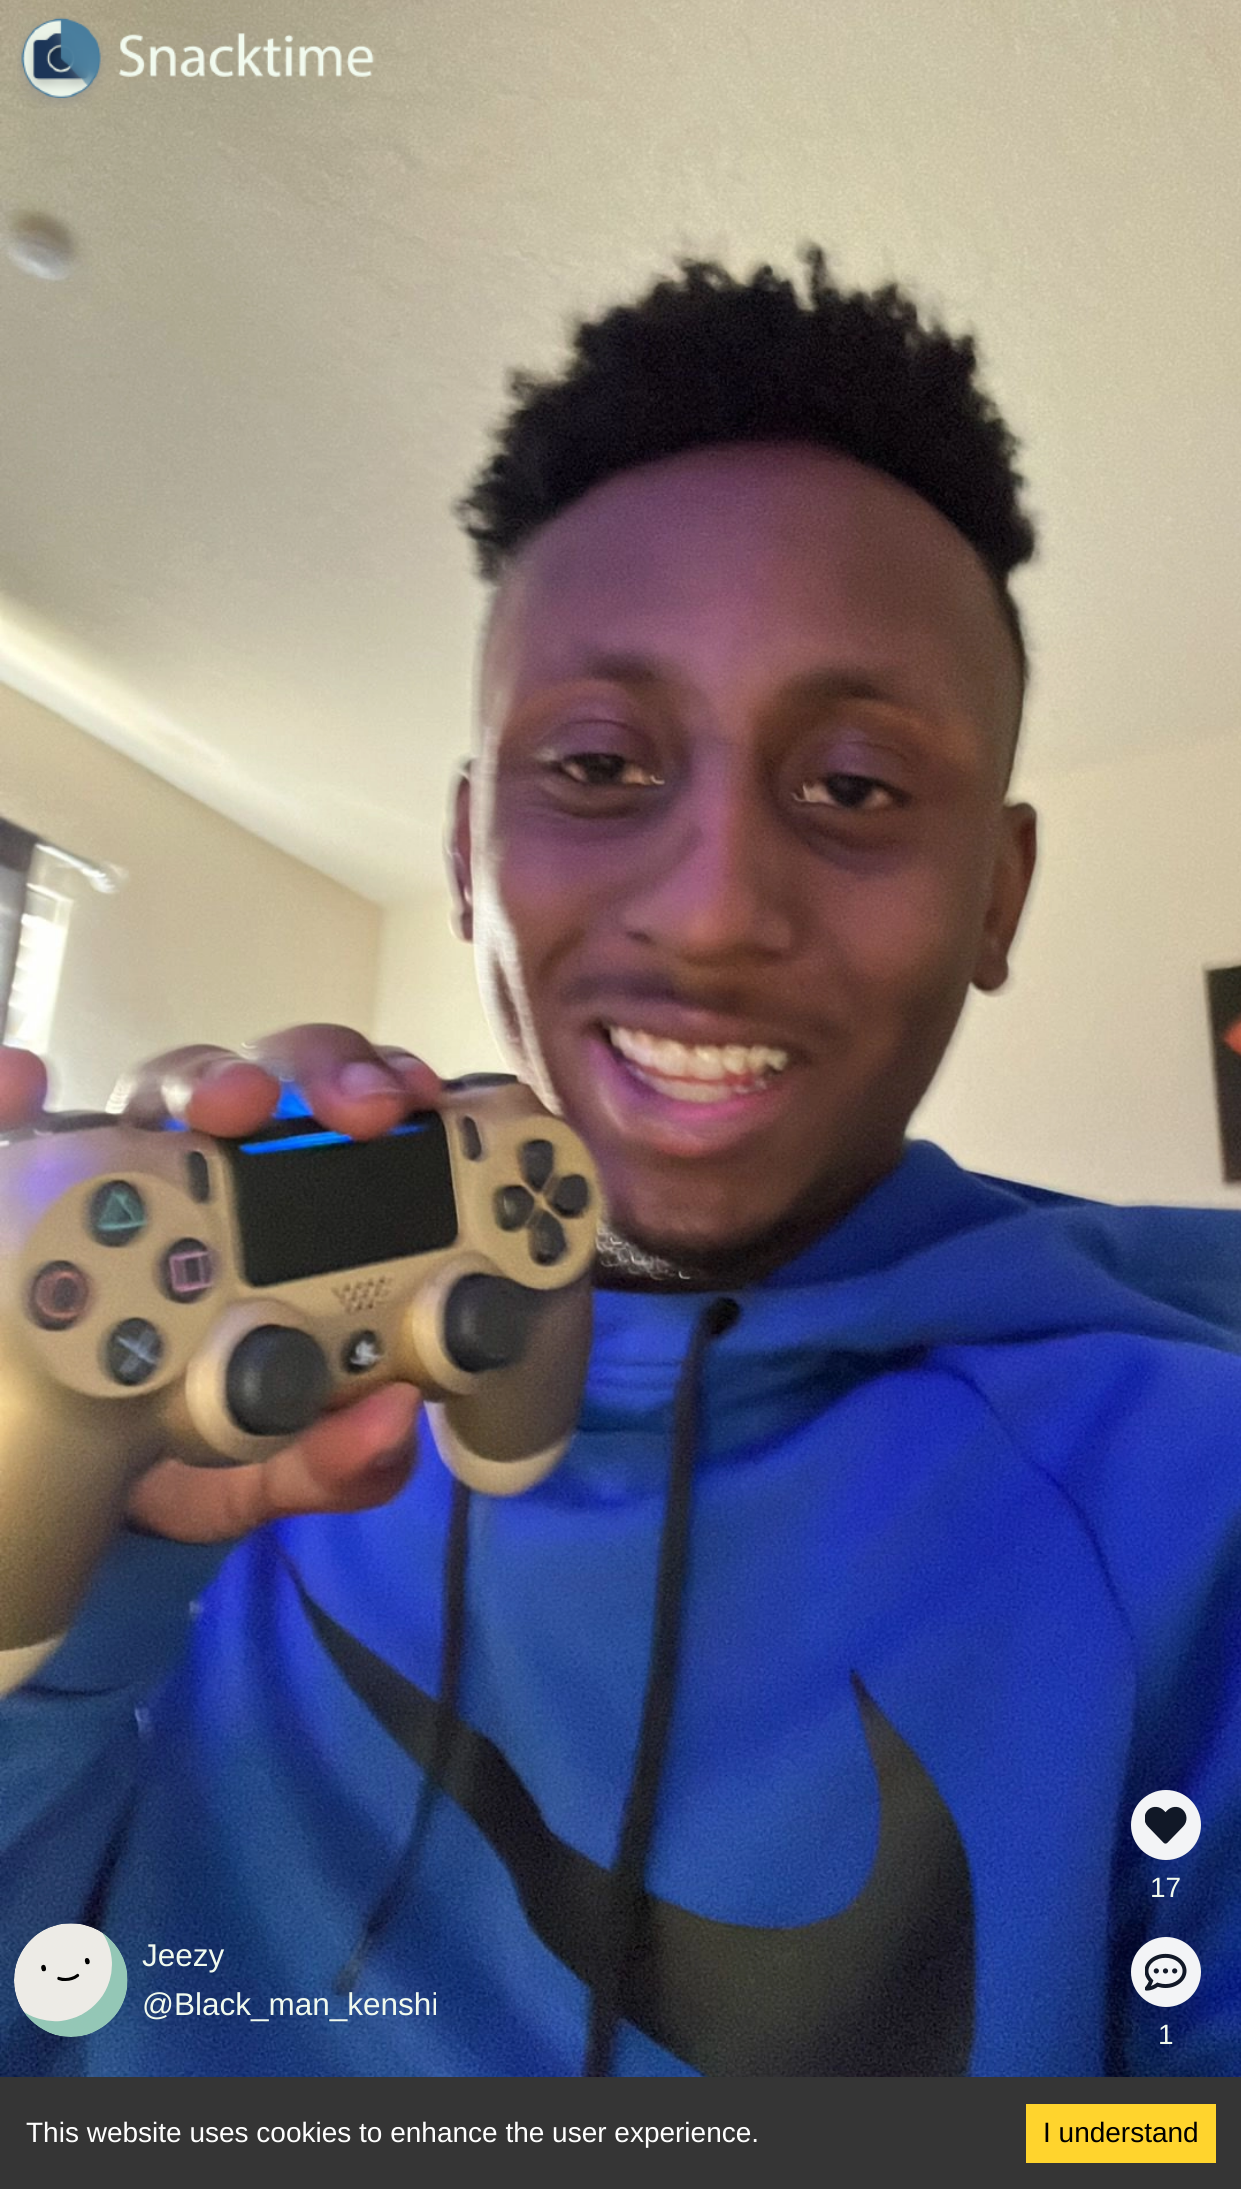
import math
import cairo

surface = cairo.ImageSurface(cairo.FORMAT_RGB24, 1241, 2189)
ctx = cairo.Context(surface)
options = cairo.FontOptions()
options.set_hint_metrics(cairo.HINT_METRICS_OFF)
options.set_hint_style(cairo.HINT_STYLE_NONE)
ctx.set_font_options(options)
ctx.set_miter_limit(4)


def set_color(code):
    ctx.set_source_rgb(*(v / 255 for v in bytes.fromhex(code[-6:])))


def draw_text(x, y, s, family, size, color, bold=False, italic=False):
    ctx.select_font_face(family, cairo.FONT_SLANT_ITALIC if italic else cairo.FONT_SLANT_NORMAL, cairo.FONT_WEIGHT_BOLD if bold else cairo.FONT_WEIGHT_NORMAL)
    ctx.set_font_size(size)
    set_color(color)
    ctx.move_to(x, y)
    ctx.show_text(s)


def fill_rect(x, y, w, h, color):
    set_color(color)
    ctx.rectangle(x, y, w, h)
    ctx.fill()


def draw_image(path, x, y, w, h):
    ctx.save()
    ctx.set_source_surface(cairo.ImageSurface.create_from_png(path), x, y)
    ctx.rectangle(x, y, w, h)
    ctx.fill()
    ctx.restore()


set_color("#ffffff")
ctx.paint()
draw_image("assets/img1.png", 0, 0, 1241, 2077)
draw_image("assets/img2.png", 17, 17, 357, 91)
draw_image("assets/img3.png", 14, 1923, 114, 114)
draw_text(142, 1966, "Jeezy", "Liberation Sans", 31.5, "#f1faee")
draw_text(142, 2015, "@Black_man_kenshi", "Liberation Sans", 31.5, "#f1faee")
set_color("#f3f4f6")
ctx.new_path()
ctx.arc(1166, 1825, 35, 0, 2 * math.pi)
ctx.fill()
draw_image("assets/img4.png", 1145, 1806, 42, 38)
draw_text(1150, 1897, "17", "Liberation Sans", 28, "#f1faee")
set_color("#f3f4f6")
ctx.new_path()
ctx.arc(1166, 1972, 35, 0, 2 * math.pi)
ctx.fill()
draw_image("assets/img5.png", 1145, 1953, 42, 38)
draw_text(1158, 2044, "1", "Liberation Sans", 28, "#f1faee")
fill_rect(0, 2077, 1241, 112, "#353535")
draw_text(26, 2142, "This website uses cookies to enhance the user experience.", "Liberation Sans", 28, "#ffffff")
fill_rect(1026, 2104, 190, 59, "#ffd42d")
draw_text(1043, 2142, "I understand", "Liberation Sans", 28, "#000000")
surface.write_to_png("output.png")
